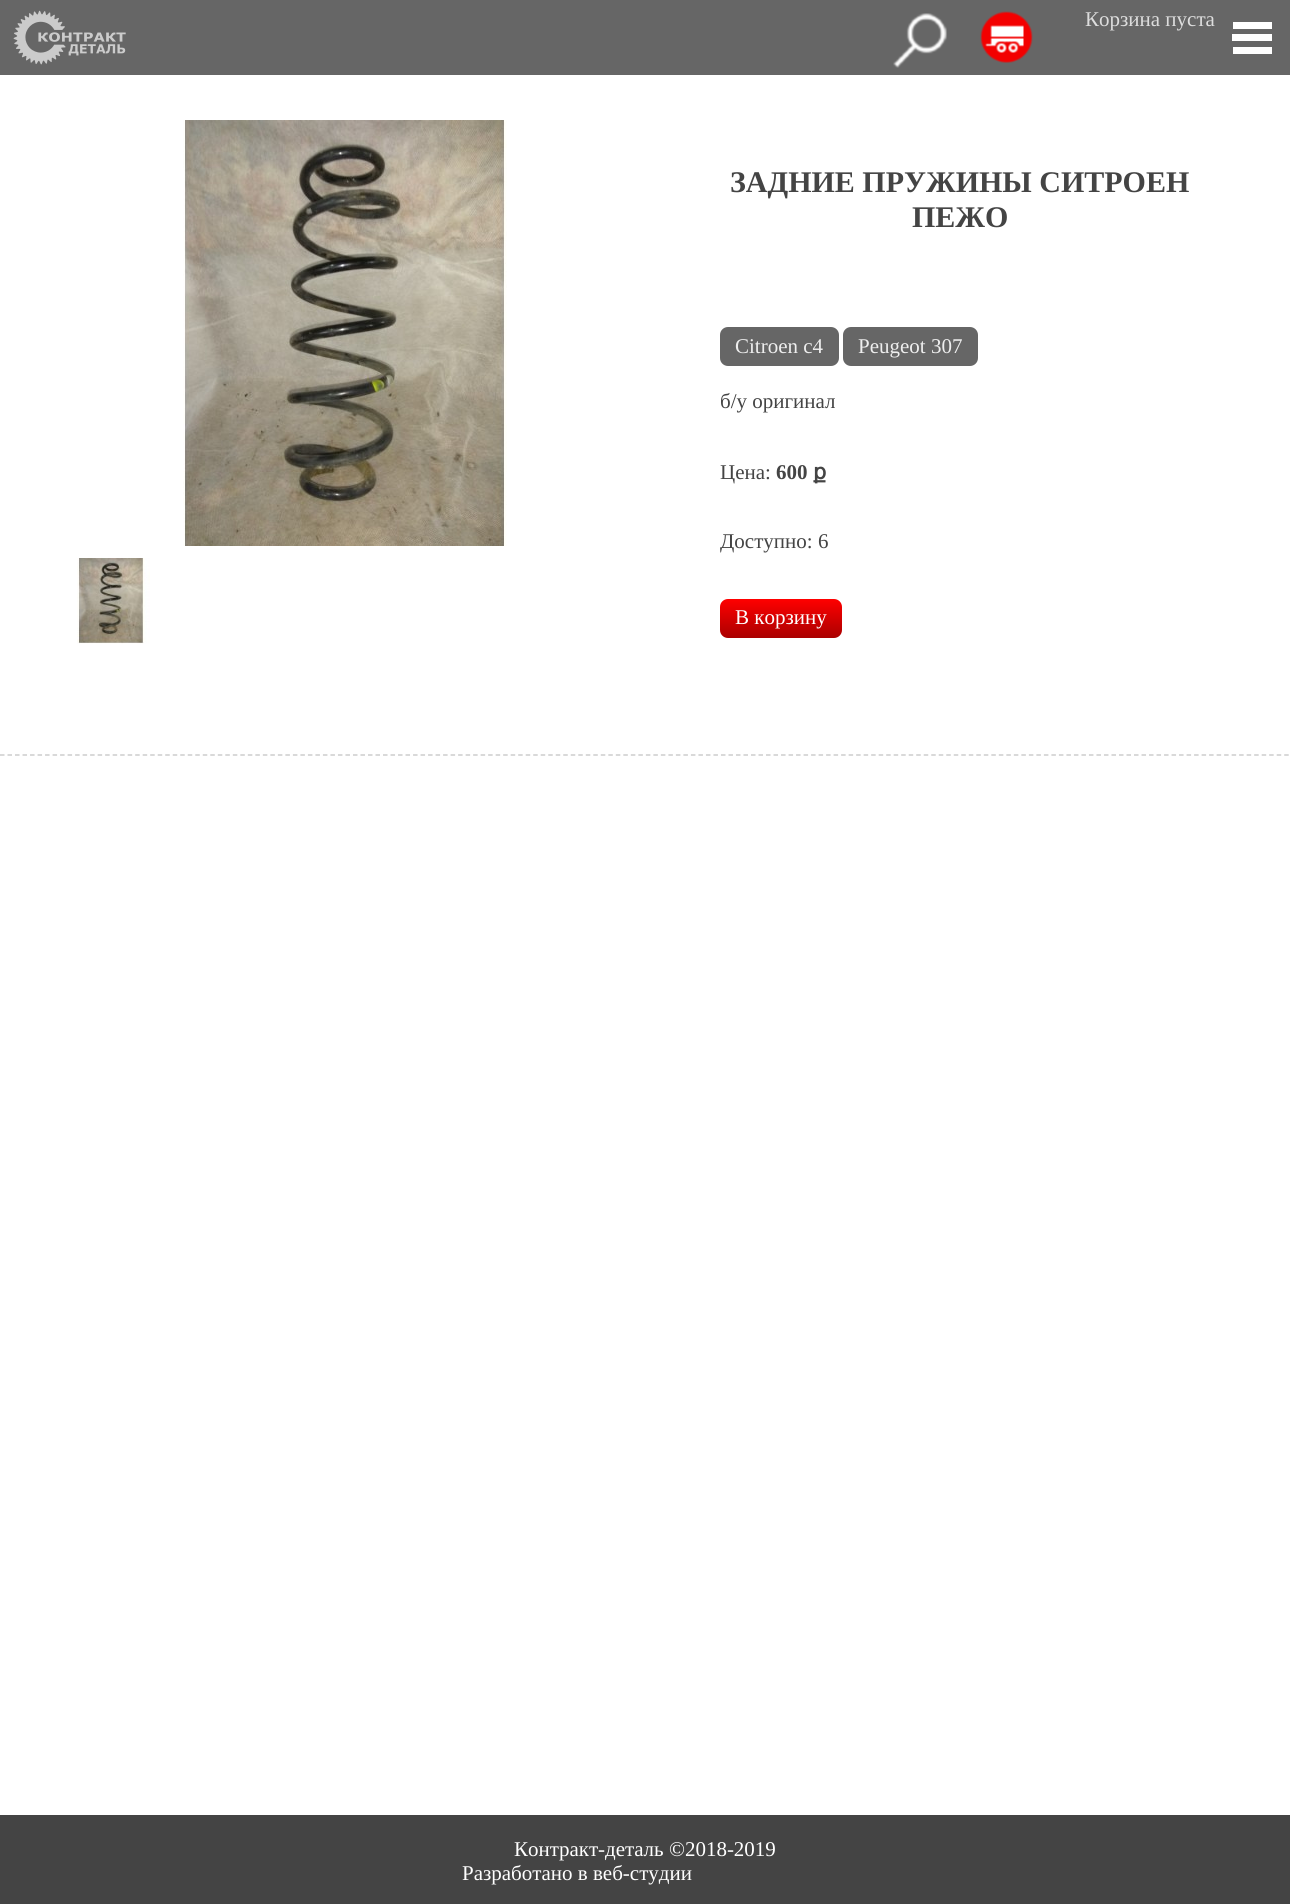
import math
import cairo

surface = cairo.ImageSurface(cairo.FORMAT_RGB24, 1290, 1904)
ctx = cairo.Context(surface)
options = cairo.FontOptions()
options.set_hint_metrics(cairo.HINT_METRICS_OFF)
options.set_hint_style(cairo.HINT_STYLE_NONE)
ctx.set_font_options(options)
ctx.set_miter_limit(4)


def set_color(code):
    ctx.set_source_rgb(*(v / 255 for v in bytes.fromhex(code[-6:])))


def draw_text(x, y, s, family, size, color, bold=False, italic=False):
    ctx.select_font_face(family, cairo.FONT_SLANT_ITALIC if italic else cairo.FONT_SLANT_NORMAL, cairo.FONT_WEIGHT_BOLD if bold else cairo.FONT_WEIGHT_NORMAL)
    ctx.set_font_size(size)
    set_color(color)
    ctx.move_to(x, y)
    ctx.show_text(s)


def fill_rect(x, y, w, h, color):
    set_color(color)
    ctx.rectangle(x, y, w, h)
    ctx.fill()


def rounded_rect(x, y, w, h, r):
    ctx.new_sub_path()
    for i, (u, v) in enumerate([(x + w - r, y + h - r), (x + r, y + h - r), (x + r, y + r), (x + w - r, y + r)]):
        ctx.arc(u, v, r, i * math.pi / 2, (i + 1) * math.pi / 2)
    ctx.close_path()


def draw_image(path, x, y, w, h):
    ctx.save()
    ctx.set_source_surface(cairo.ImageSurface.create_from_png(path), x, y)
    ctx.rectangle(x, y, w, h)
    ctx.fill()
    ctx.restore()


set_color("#ffffff")
ctx.paint()
fill_rect(0, 0, 1290, 75, "#666666")
draw_image("assets/img1.png", 13, 10, 113, 55)
draw_image("assets/img2.png", 893, 13, 54, 55)
draw_image("assets/img3.png", 980, 11, 53, 52)
draw_text(1085, 26, "Корзина пуста", "Liberation Serif", 21, "#dddddd")
fill_rect(1233, 22, 39, 7, "#ffffff")
fill_rect(1232, 34, 40, 7, "#ffffff")
fill_rect(1233, 47, 39, 7, "#ffffff")
draw_image("assets/img4.png", 183, 120, 324, 426)
draw_image("assets/img5.png", 77, 558, 73, 86)
draw_text(730, 192, "ЗАДНИЕ ПРУЖИНЫ СИТРОЕН", "Liberation Serif", 30, "#444444", bold=True)
draw_text(912, 227, "ПЕЖО", "Liberation Serif", 30, "#444444", bold=True)
set_color("#666666")
rounded_rect(720, 327, 119, 39, 8)
ctx.fill()
draw_text(735, 353, "Citroen c4", "Liberation Serif", 21, "#eeeeee")
set_color("#666666")
rounded_rect(843, 327, 135, 39, 8)
ctx.fill()
draw_text(858, 353, "Peugeot 307", "Liberation Serif", 21, "#eeeeee")
draw_text(720, 408, "б/у оригинал", "Liberation Serif", 21, "#444444")
draw_text(720, 479, "Цена:", "Liberation Serif", 21, "#444444")
draw_text(776, 479, "600", "Liberation Serif", 21, "#444444", bold=True)
draw_text(813, 479, "ք", "DejaVu Sans", 21, "#444444", bold=True)
draw_text(720, 548, "Доступно: 6", "Liberation Serif", 21, "#444444")
gradient = cairo.LinearGradient(781, 599, 781, 638)
gradient.add_color_stop_rgba(0, 1, 0, 0, 1)
gradient.add_color_stop_rgba(1, 0.667, 0, 0, 1)
ctx.set_source(gradient)
rounded_rect(720, 599, 122, 39, 8)
ctx.fill()
draw_text(735, 624, "В корзину", "Liberation Serif", 21, "#ffffff")
ctx.new_path()
ctx.move_to(0, 755)
ctx.line_to(1290, 755)
set_color("#cccccc")
ctx.set_line_width(1.5)
ctx.set_dash([4.5, 3.01])
ctx.stroke()
fill_rect(0, 1815, 1290, 89, "#444444")
draw_text(514, 1856, "Контракт-деталь ©2018-2019", "Liberation Serif", 21, "#ffffff")
draw_text(462, 1880, "Разработано в веб-студии", "Liberation Serif", 21, "#ffffff")
surface.write_to_png("output.png")
